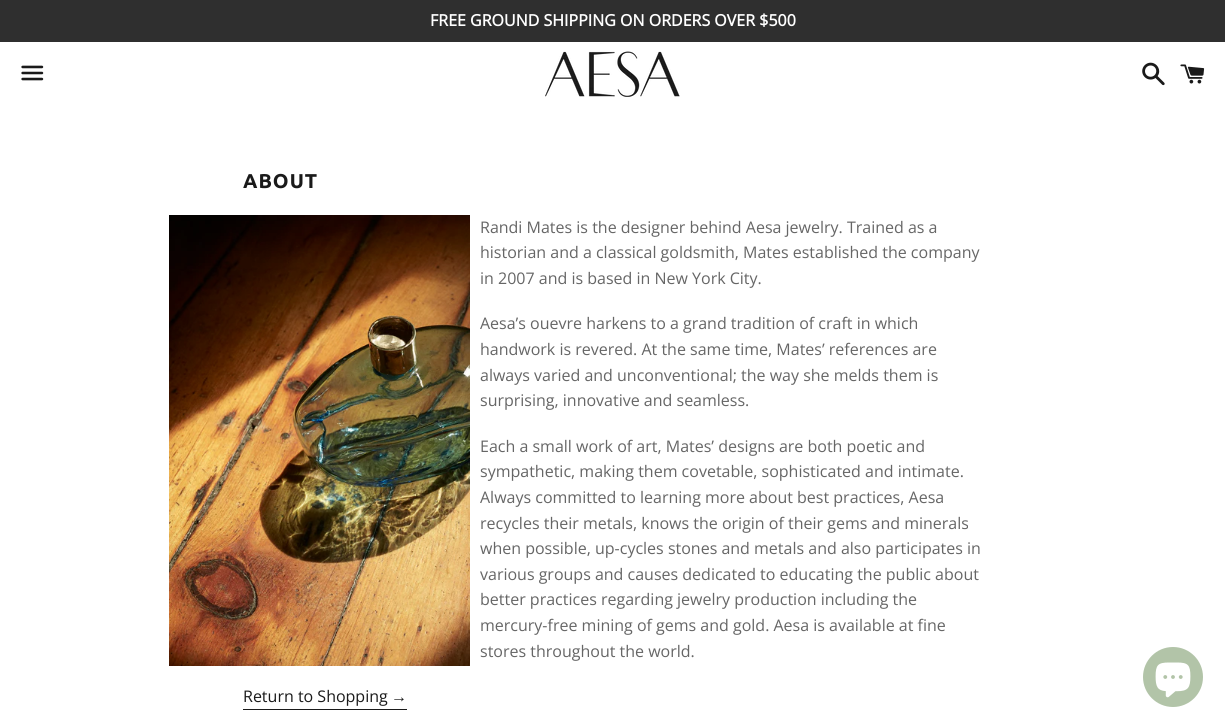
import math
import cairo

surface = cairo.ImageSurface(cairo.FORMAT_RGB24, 1225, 728)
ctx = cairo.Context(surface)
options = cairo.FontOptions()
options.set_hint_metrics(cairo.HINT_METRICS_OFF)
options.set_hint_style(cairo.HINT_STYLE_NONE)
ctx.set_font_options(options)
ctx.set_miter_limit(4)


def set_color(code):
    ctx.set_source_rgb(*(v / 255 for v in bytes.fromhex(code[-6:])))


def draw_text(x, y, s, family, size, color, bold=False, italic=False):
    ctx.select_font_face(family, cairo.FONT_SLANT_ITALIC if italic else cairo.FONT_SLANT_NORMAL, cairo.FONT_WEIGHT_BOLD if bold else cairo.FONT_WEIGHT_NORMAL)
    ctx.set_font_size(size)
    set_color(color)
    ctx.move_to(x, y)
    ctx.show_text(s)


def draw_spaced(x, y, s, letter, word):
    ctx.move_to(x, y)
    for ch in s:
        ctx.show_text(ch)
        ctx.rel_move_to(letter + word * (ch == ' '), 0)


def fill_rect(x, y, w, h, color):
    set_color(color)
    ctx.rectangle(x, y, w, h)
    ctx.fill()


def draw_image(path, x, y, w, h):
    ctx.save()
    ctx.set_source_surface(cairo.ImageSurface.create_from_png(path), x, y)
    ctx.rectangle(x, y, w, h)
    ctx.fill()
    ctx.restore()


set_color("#ffffff")
ctx.paint()
fill_rect(0, 0, 1225, 42, "#2f2f2f")
draw_text(430, 26, "FREE GROUND SHIPPING ON ORDERS OVER $500", "Open Sans", 16, "#ffffff", bold=True)
draw_image("assets/img1.png", 21, 65, 23, 16)
draw_image("assets/img2.png", 545, 51, 135, 46)
draw_image("assets/img3.png", 1142, 62, 23, 24)
draw_image("assets/img4.png", 1180, 64, 25, 20)
ctx.select_font_face("Ubuntu", cairo.FONT_SLANT_NORMAL, cairo.FONT_WEIGHT_BOLD)
ctx.set_font_size(20)
set_color("#1a1a1a")
draw_spaced(243, 188, "ABOUT", 1, 0)
draw_image("assets/img5.png", 169, 215, 301, 451)
draw_text(480, 233, "Randi Mates is the designer behind Aesa jewelry. Trained as a", "Open Sans", 16, "#666666")
draw_text(480, 258, "historian and a classical goldsmith, Mates established the company", "Open Sans", 16, "#666666")
draw_text(480, 284, "in 2007 and is based in New York City.", "Open Sans", 16, "#666666")
draw_text(480, 329, "Aesa’s ouevre harkens to a grand tradition of craft in which", "Open Sans", 16, "#666666")
draw_text(480, 355, "handwork is revered. At the same time, Mates’ references are", "Open Sans", 16, "#666666")
draw_text(480, 381, "always varied and unconventional; the way she melds them is", "Open Sans", 16, "#666666")
draw_text(480, 406, "surprising, innovative and seamless.", "Open Sans", 16, "#666666")
draw_text(480, 452, "Each a small work of art, Mates’ designs are both poetic and", "Open Sans", 16, "#666666")
draw_text(480, 477, "sympathetic, making them covetable, sophisticated and intimate.", "Open Sans", 16, "#666666")
draw_text(480, 503, "Always committed to learning more about best practices, Aesa", "Open Sans", 16, "#666666")
draw_text(480, 529, "recycles their metals, knows the origin of their gems and minerals", "Open Sans", 16, "#666666")
draw_text(480, 554, "when possible, up-cycles stones and metals and also participates in", "Open Sans", 16, "#666666")
draw_text(480, 580, "various groups and causes dedicated to educating the public about", "Open Sans", 16, "#666666")
draw_text(480, 605, "better practices regarding jewelry production including the", "Open Sans", 16, "#666666")
draw_text(480, 631, "mercury-free mining of gems and gold. Aesa is available at fine", "Open Sans", 16, "#666666")
draw_text(480, 657, "stores throughout the world.", "Open Sans", 16, "#666666")
draw_text(243, 702, "Return to Shopping", "Open Sans", 16, "#1a1a1a")
draw_text(391, 702, "→", "Liberation Sans", 16, "#1a1a1a")
fill_rect(243, 709, 164, 1, "#1a1a1a")
set_color("#b2c4a8")
ctx.new_path()
ctx.arc(1173, 677, 30, 0, 2 * math.pi)
ctx.fill()
draw_image("assets/img6.png", 1155, 662, 36, 36)
surface.write_to_png("output.png")
